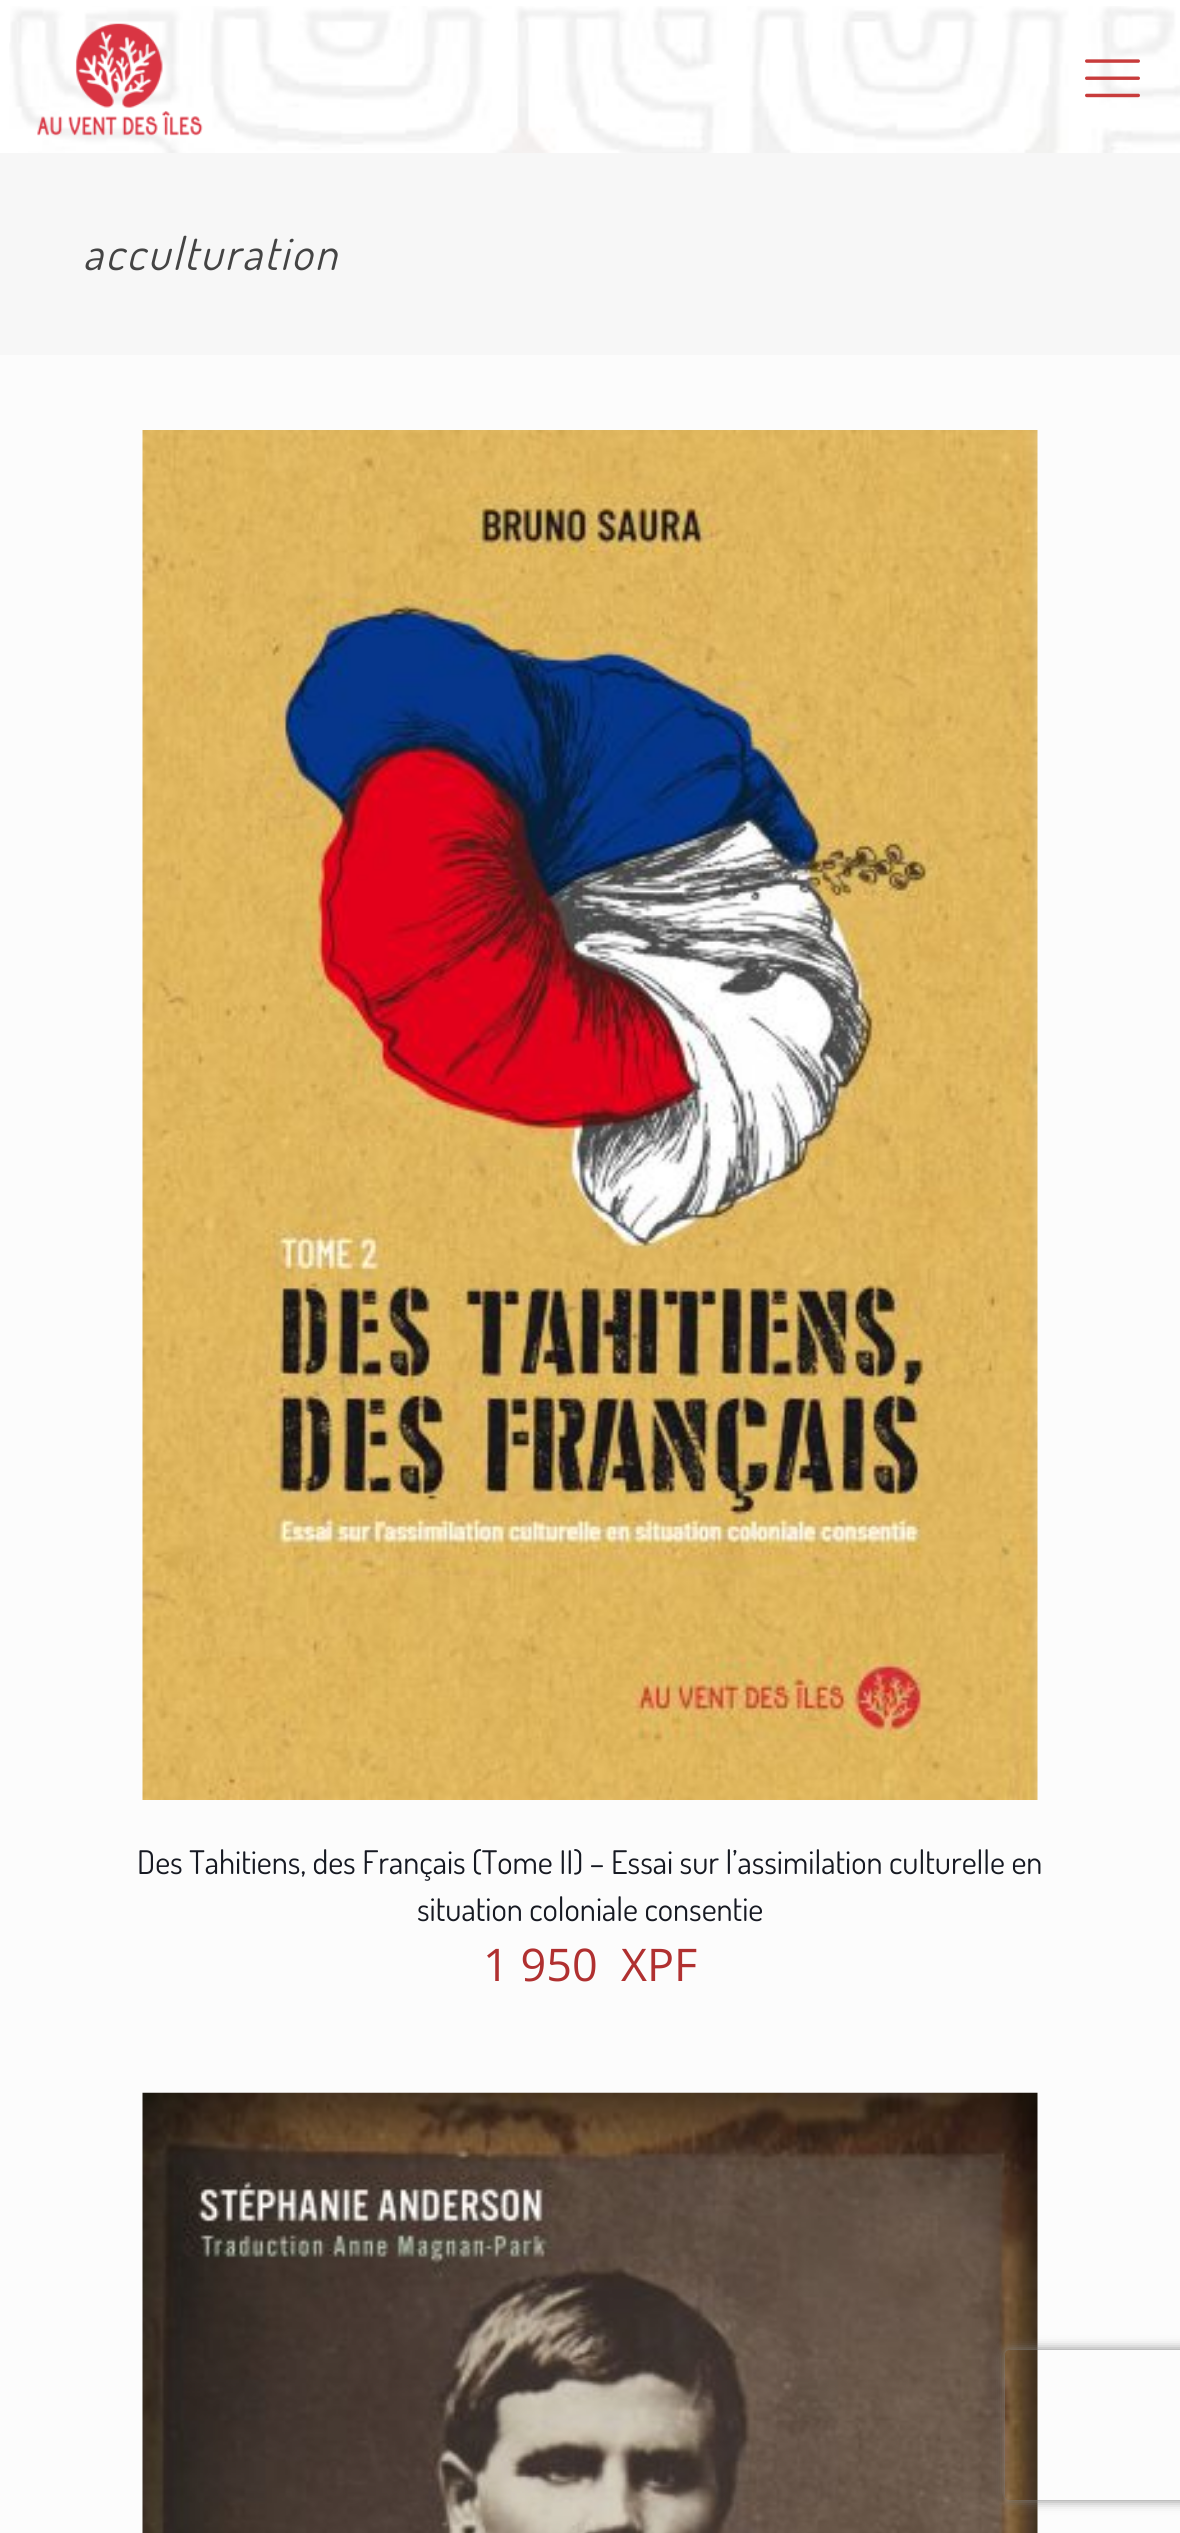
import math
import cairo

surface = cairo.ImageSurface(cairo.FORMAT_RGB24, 1180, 2533)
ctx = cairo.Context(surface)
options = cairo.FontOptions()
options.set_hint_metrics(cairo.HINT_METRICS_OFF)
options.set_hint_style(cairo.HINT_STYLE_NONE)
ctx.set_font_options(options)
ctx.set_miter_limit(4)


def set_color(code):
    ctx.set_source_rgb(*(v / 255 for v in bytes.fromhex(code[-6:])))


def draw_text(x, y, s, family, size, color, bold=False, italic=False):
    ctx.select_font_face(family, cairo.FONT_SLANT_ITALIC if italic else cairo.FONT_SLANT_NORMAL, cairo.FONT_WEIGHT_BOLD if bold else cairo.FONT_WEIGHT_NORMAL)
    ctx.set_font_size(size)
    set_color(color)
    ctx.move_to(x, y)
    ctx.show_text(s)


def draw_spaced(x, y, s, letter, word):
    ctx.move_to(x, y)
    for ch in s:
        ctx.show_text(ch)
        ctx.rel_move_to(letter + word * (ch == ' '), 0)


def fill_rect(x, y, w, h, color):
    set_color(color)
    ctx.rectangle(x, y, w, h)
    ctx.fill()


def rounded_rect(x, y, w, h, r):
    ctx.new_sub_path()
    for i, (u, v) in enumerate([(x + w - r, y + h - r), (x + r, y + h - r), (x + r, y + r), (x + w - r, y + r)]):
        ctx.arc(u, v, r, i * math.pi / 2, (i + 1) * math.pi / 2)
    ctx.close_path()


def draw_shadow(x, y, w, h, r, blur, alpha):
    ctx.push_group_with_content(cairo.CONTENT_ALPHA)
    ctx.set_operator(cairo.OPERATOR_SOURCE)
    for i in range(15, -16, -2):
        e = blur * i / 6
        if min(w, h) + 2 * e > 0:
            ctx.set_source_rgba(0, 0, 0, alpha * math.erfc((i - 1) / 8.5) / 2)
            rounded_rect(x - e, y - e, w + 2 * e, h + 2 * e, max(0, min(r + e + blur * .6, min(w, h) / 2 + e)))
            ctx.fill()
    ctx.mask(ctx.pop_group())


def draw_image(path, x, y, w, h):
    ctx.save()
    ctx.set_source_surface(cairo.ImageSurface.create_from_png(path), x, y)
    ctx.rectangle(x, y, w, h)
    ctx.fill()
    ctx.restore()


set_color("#fcfcfc")
ctx.paint()
fill_rect(0, 0, 1180, 153, "#ffffff")
draw_image("assets/img1.png", 9, 6, 1171, 147)
draw_image("assets/img2.png", 37, 23, 166, 113)
draw_image("assets/img3.png", 1085, 59, 55, 39)
fill_rect(0, 153, 1180, 202, "#f7f7f7")
ctx.select_font_face("Dosis", cairo.FONT_SLANT_ITALIC)
ctx.set_font_size(45)
set_color("#444444")
draw_spaced(83, 270, "acculturation", 2.5, 0)
draw_image("assets/img4.png", 142, 430, 896, 1370)
draw_text(137, 1874, "Des Tahitiens, des Français (Tome II) – Essai sur l’assimilation culturelle en", "Dosis", 32.5, "#161922")
draw_text(417, 1921, "situation coloniale consentie", "Dosis", 32.5, "#161922")
draw_text(483, 1981, "1 950", "Open Sans", 45, "#b03030")
draw_text(621, 1981, "XPF", "Open Sans", 45, "#b03030")
draw_image("assets/img5.png", 142, 2092, 896, 441)
ctx.save()
ctx.set_fill_rule(cairo.FILL_RULE_EVEN_ODD)
ctx.new_path()
ctx.move_to(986, 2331)
ctx.line_to(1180, 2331)
ctx.line_to(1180, 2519)
ctx.line_to(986, 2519)
ctx.close_path()
ctx.move_to(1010, 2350)
ctx.line_to(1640, 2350)
ctx.curve_to(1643, 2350, 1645, 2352, 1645, 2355)
ctx.line_to(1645, 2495)
ctx.curve_to(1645, 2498, 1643, 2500, 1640, 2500)
ctx.line_to(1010, 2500)
ctx.curve_to(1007, 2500, 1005, 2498, 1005, 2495)
ctx.line_to(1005, 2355)
ctx.curve_to(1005, 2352, 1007, 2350, 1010, 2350)
ctx.close_path()
ctx.clip()
set_color("#808080")
draw_shadow(1005, 2350, 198, 150, 5, 6, 1)
ctx.restore()
surface.write_to_png("output.png")
